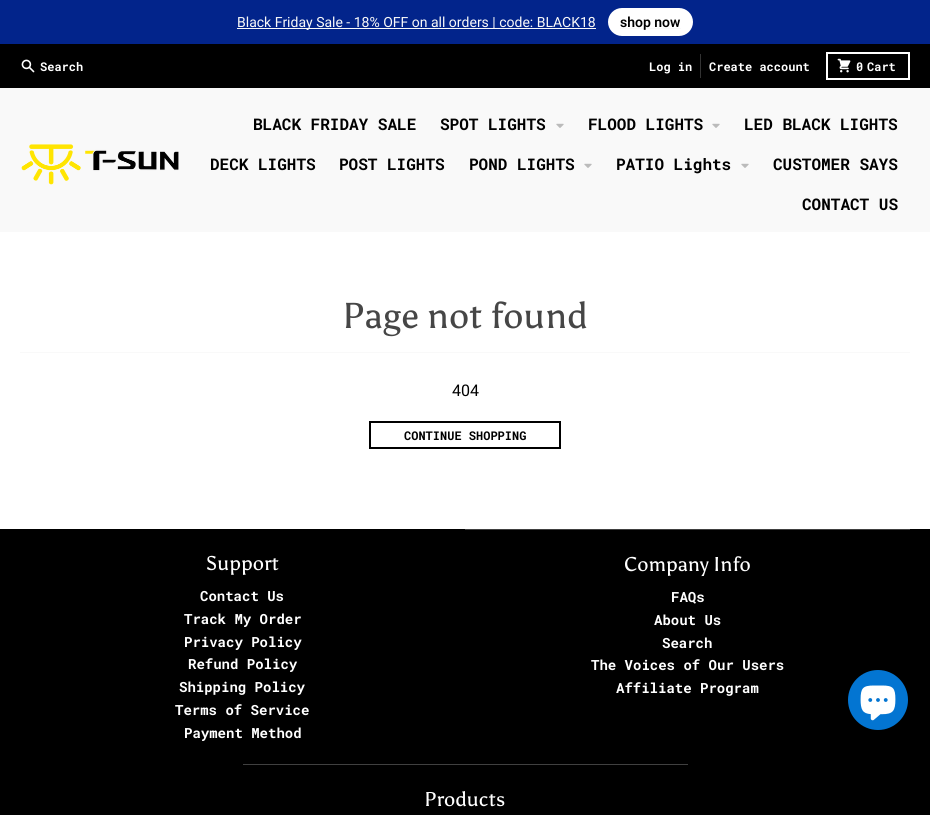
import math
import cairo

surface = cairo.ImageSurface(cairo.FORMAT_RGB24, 930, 815)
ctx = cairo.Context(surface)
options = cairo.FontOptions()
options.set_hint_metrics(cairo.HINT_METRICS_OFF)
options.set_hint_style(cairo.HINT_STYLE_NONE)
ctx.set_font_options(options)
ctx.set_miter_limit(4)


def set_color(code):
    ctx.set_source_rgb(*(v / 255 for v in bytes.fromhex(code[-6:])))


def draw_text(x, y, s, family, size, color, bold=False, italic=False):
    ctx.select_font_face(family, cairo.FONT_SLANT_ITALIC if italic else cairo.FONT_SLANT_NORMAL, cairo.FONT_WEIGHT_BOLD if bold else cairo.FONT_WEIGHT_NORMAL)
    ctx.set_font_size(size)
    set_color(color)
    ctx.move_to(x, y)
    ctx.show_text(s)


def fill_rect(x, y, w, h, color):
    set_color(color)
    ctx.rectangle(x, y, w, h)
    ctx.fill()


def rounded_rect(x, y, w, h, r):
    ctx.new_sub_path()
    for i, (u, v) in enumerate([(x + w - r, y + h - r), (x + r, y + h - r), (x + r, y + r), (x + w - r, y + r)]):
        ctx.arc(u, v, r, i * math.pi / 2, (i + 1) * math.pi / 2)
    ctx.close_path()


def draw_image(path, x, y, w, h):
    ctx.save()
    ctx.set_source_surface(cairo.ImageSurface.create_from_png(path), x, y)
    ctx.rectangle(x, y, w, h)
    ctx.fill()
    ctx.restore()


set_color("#000000")
ctx.paint()
fill_rect(0, 0, 930, 44, "#02248b")
fill_rect(237, 28, 359, 1, "#f9f9f9")
draw_text(237, 27, "Black Friday Sale - 18% OFF on all orders | code: BLACK18", "Roboto", 14, "#f9f9f9")
set_color("#ffffff")
rounded_rect(608, 8, 85, 28, 14)
ctx.fill()
fill_rect(620, 28, 61, 1, "#f9f9f9")
draw_text(620, 27, "shop now", "Roboto SemiBold", 14, "#000000")
draw_image("assets/img1.png", 21, 59, 14, 14)
draw_text(40, 71, "Search", "Roboto Mono", 12, "#ffffff", bold=True)
draw_text(649, 71, "Log in", "Roboto Mono", 12, "#ffffff", bold=True)
fill_rect(700, 54, 1, 24, "#333333")
draw_text(709, 71, "Create account", "Roboto Mono", 12, "#ffffff", bold=True)
ctx.rectangle(827, 53, 82, 26)
ctx.stroke()
draw_image("assets/img2.png", 837, 58, 14, 15)
draw_text(856, 71, "0", "Roboto Mono", 12, "#ffffff", bold=True)
draw_text(867, 71, "Cart", "Roboto Mono", 12, "#ffffff", bold=True)
fill_rect(0, 88, 930, 144, "#f9f9f9")
draw_image("assets/img3.png", 21, 144, 158, 41)
draw_text(253, 130, "BLACK FRIDAY SALE", "Roboto Mono", 16, "#000000", bold=True)
draw_text(440, 130, "SPOT LIGHTS", "Roboto Mono", 16, "#000000", bold=True)
draw_image("assets/img4.png", 556, 123, 8, 5)
draw_text(588, 130, "FLOOD LIGHTS", "Roboto Mono", 16, "#000000", bold=True)
draw_image("assets/img4.png", 712, 123, 8, 5)
draw_text(744, 130, "LED BLACK LIGHTS", "Roboto Mono", 16, "#000000", bold=True)
draw_text(210, 170, "DECK LIGHTS", "Roboto Mono", 16, "#000000", bold=True)
draw_text(339, 170, "POST LIGHTS", "Roboto Mono", 16, "#000000", bold=True)
draw_text(469, 170, "POND LIGHTS", "Roboto Mono", 16, "#000000", bold=True)
draw_image("assets/img4.png", 584, 163, 8, 5)
draw_text(616, 170, "PATIO Lights", "Roboto Mono", 16, "#000000", bold=True)
draw_image("assets/img4.png", 741, 163, 8, 5)
draw_text(773, 170, "CUSTOMER SAYS", "Roboto Mono", 16, "#000000", bold=True)
draw_text(802, 210, "CONTACT US", "Roboto Mono", 16, "#000000", bold=True)
fill_rect(0, 232, 930, 297, "#ffffff")
fill_rect(20, 352, 890, 1, "#f9f9f9")
draw_text(342, 328, "Page not found", "Asul", 36, "#464646")
draw_text(452, 396, "404", "Roboto", 16, "#000000")
ctx.rectangle(370, 422, 190, 26)
ctx.stroke()
draw_text(404, 440, "CONTINUE SHOPPING", "Roboto Mono", 12, "#000000", bold=True)
draw_text(206, 570, "Support", "Asul", 20, "#ffffff")
draw_text(200, 601, "Contact Us", "Roboto Mono", 14, "#ffffff", bold=True)
draw_text(184, 624, "Track My Order", "Roboto Mono", 14, "#ffffff", bold=True)
draw_text(184, 647, "Privacy Policy", "Roboto Mono", 14, "#ffffff", bold=True)
draw_text(188, 669, "Refund Policy", "Roboto Mono", 14, "#ffffff", bold=True)
draw_text(179, 692, "Shipping Policy", "Roboto Mono", 14, "#ffffff", bold=True)
draw_text(175, 715, "Terms of Service", "Roboto Mono", 14, "#ffffff", bold=True)
draw_text(184, 738, "Payment Method", "Roboto Mono", 14, "#ffffff", bold=True)
fill_rect(465, 529, 445, 1, "#404040")
draw_text(624, 571, "Company Info", "Asul", 20, "#ffffff")
draw_text(671, 602, "FAQs", "Roboto Mono", 14, "#ffffff", bold=True)
draw_text(654, 625, "About Us", "Roboto Mono", 14, "#ffffff", bold=True)
draw_text(662, 648, "Search", "Roboto Mono", 14, "#ffffff", bold=True)
draw_text(591, 670, "The Voices of Our Users", "Roboto Mono", 14, "#ffffff", bold=True)
draw_text(616, 693, "Affiliate Program", "Roboto Mono", 14, "#ffffff", bold=True)
fill_rect(243, 764, 445, 1, "#404040")
draw_text(424, 806, "Products", "Asul", 20, "#ffffff")
set_color("#0375d2")
ctx.new_path()
ctx.arc(878, 700, 30, 0, 2 * math.pi)
ctx.fill()
draw_image("assets/img5.png", 860, 685, 36, 36)
surface.write_to_png("output.png")
